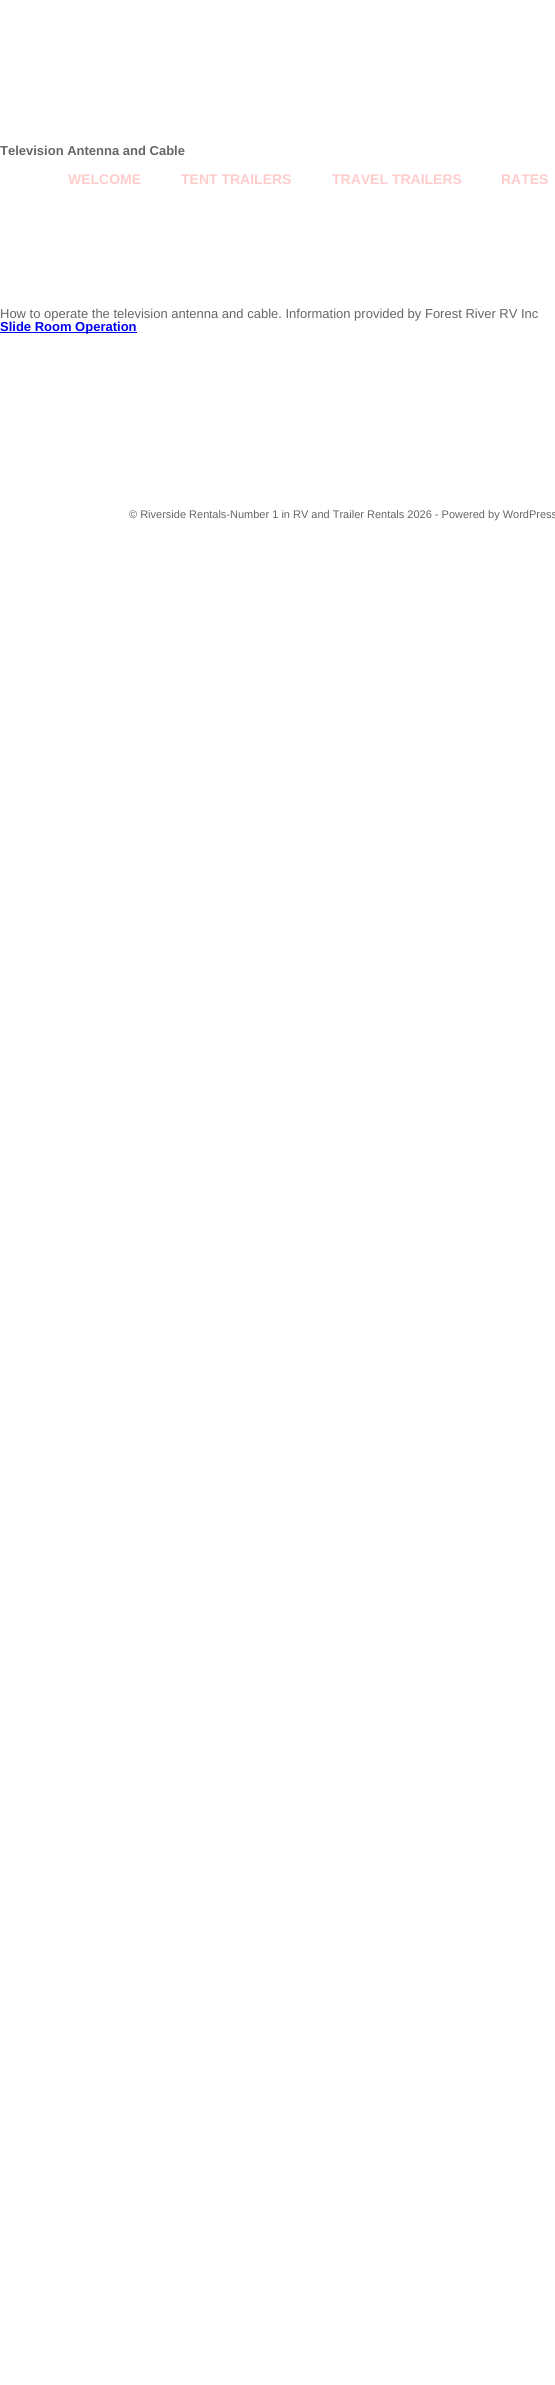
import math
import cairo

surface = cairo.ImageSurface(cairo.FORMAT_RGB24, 555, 2385)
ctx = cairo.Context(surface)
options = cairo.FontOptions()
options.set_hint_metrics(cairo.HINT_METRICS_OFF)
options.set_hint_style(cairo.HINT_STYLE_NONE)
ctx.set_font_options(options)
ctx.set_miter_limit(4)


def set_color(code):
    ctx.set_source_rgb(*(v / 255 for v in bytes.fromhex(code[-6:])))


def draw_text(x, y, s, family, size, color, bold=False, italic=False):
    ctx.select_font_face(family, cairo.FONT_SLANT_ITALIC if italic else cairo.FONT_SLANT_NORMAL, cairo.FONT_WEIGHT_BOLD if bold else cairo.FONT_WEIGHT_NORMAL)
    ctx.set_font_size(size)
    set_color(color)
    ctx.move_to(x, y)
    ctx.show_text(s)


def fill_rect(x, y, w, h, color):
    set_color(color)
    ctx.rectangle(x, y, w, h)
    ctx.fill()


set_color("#ffffff")
ctx.paint()
draw_text(0, 155, "Television Antenna and Cable", "Liberation Sans", 13, "#666666", bold=True)
draw_text(0, 318, "How to operate the television antenna and cable. Information provided by Forest River RV Inc", "Liberation Sans", 13, "#666666")
fill_rect(0, 332, 137, 1, "#0000ee")
draw_text(0, 331, "Slide Room Operation", "Liberation Sans", 13, "#0000ee", bold=True)
draw_text(68, 184, "WELCOME", "Liberation Sans", 14, "#ffcccc", bold=True)
draw_text(181, 184, "TENT TRAILERS", "Liberation Sans", 14, "#ffcccc", bold=True)
draw_text(332, 184, "TRAVEL TRAILERS", "Liberation Sans", 14, "#ffcccc", bold=True)
draw_text(501, 184, "RATES", "Liberation Sans", 14, "#ffcccc", bold=True)
draw_text(129, 518, "© Riverside Rentals-Number 1 in RV and Trailer Rentals 2026 - Powered by WordPress", "Liberation Sans", 11, "#666666")
surface.write_to_png("output.png")
